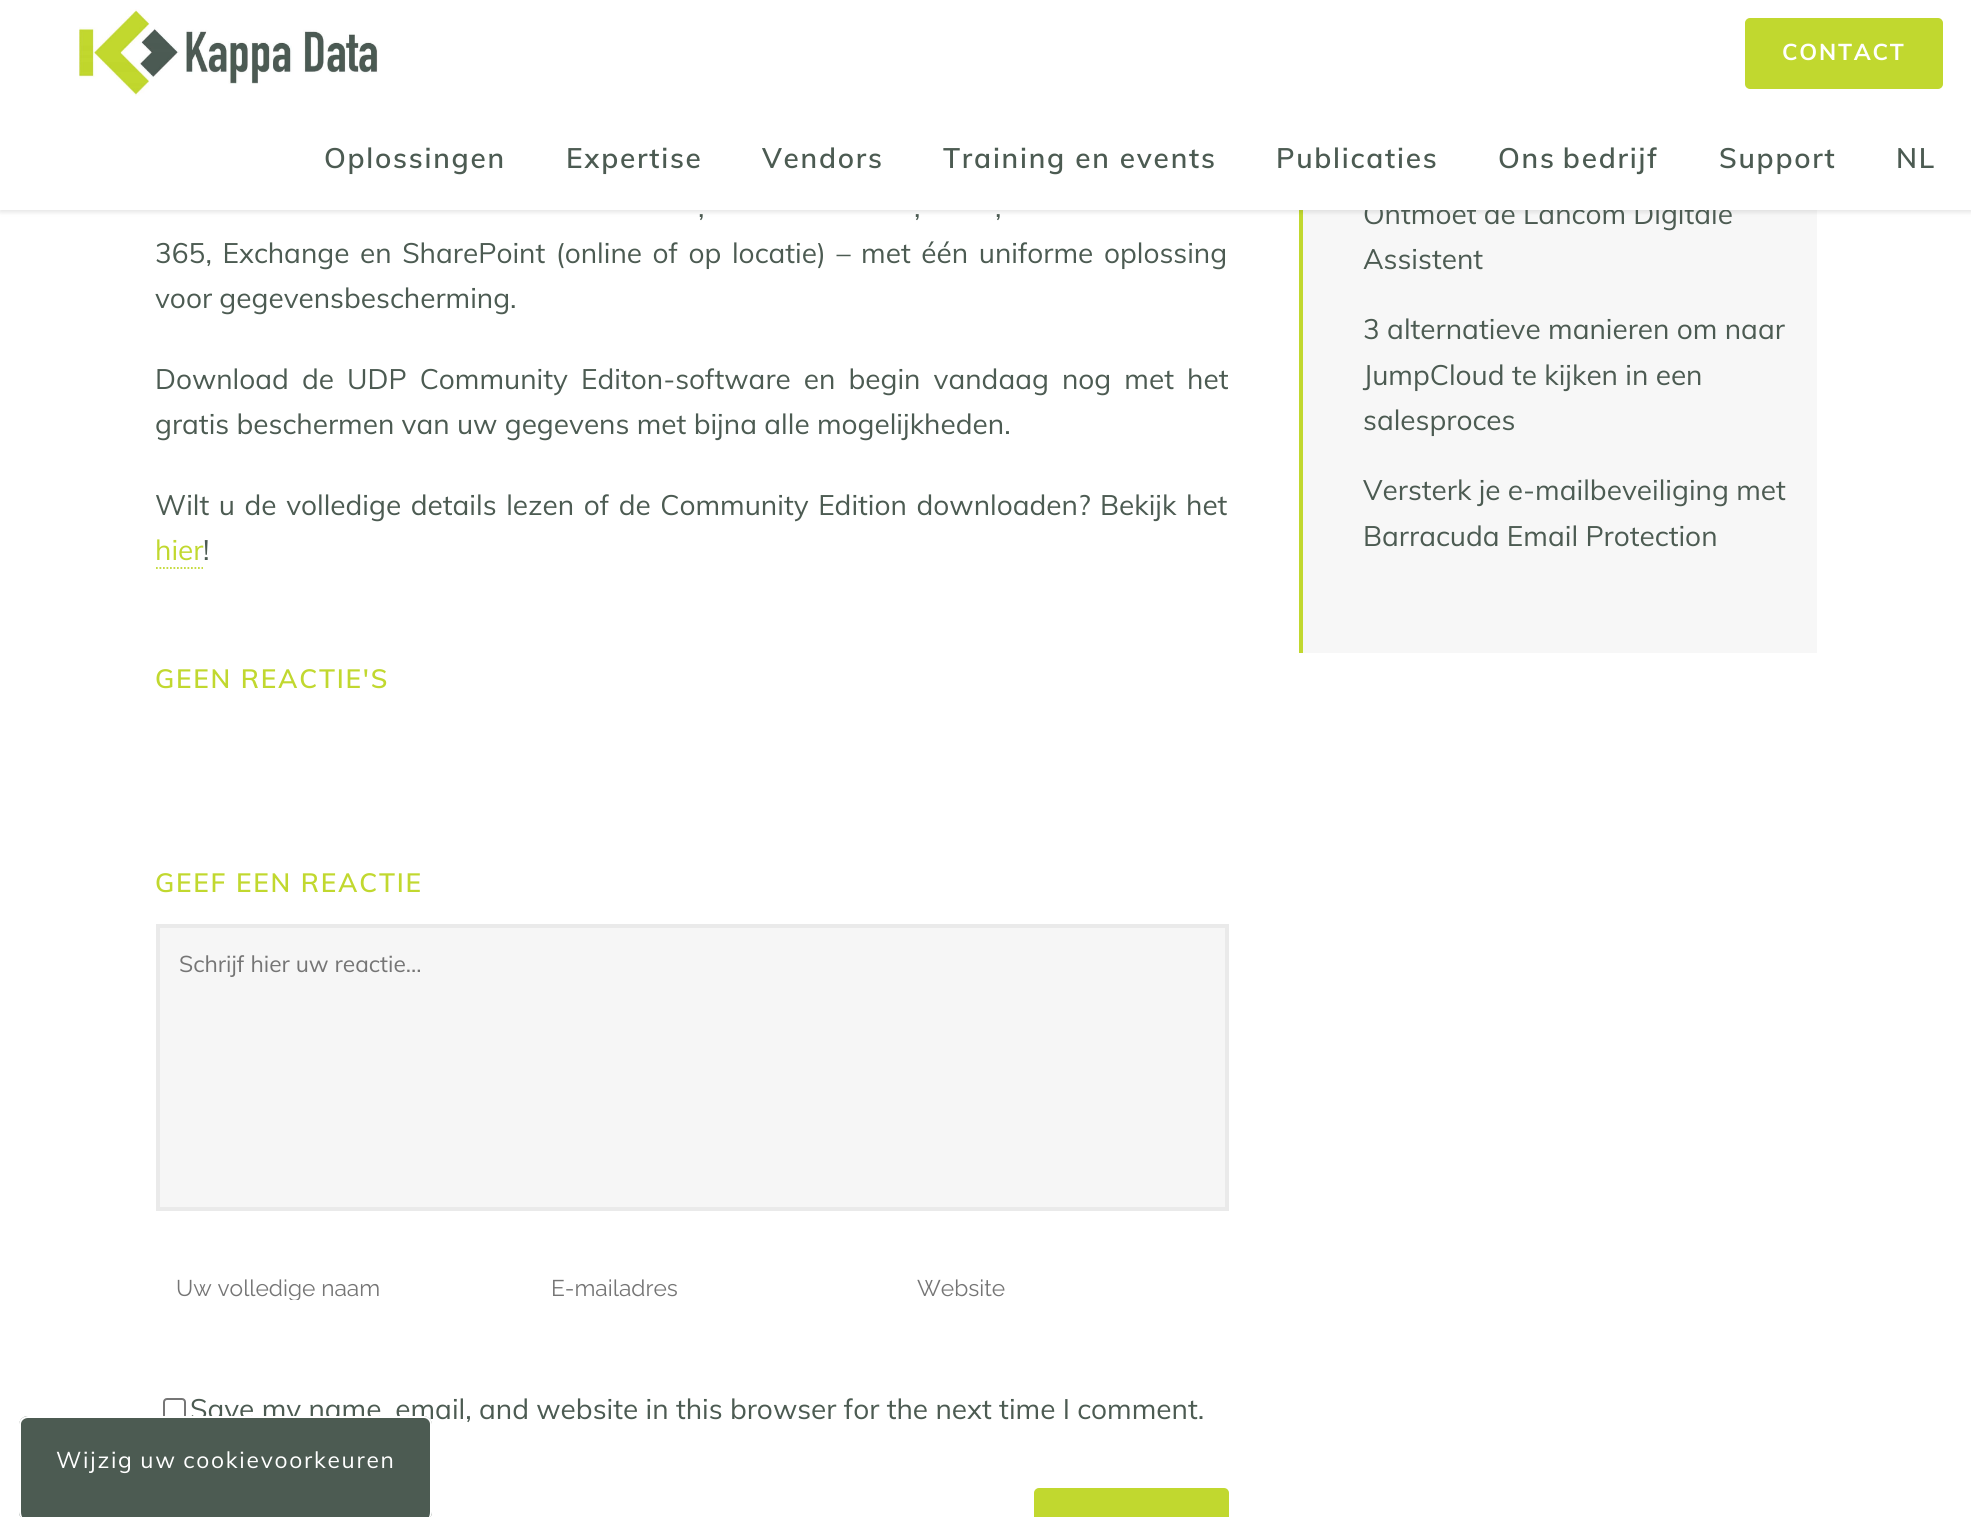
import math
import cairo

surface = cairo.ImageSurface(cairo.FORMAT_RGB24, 1971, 1517)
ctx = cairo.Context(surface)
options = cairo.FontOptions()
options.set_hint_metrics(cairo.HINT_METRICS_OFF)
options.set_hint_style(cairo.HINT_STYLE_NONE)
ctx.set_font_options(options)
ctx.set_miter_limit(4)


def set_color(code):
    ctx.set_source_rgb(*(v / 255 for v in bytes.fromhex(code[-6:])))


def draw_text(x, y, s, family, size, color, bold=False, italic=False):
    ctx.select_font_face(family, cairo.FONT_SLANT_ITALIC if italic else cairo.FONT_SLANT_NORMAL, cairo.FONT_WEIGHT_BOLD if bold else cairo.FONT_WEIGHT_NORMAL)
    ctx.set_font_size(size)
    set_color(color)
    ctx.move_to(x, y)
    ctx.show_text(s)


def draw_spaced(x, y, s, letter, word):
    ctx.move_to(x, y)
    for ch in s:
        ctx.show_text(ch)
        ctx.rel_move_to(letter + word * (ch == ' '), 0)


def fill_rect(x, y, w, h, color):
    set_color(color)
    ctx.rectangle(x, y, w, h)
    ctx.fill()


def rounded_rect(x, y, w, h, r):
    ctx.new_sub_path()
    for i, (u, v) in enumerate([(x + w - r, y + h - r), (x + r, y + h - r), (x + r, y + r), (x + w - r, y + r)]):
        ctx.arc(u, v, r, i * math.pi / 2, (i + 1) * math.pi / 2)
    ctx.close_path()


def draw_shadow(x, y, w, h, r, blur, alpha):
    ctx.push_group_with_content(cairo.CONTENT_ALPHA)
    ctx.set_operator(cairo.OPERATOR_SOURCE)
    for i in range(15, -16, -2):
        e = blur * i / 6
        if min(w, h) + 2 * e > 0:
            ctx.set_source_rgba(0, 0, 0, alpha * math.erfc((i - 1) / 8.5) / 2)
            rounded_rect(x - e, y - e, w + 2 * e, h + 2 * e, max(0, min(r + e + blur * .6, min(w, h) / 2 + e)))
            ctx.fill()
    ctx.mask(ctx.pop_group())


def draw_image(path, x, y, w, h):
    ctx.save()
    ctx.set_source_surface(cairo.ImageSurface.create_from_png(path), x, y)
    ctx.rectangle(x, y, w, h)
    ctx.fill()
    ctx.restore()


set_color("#ffffff")
ctx.paint()
fill_rect(1303, 210, 514, 443, "#f7f7f7")
fill_rect(1299, 210, 4, 443, "#c1d82f")
set_color("#000000")
draw_shadow(0, 2, 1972, 210, 0, 2.5, 0.11)
draw_text(1363, 224, "Ontmoet de Lancom Digitale", "Muli", 28, "#4c5b52")
fill_rect(0, 0, 1971, 210, "#ffffff")
draw_image("assets/img1.png", 79, 9, 299, 87)
set_color("#c1d82f")
rounded_rect(1746, 19, 196, 69, 4)
ctx.fill_preserve()
ctx.stroke()
ctx.select_font_face("Muli", cairo.FONT_SLANT_NORMAL, cairo.FONT_WEIGHT_BOLD)
ctx.set_font_size(22.75)
set_color("#ffffff")
draw_spaced(1782, 60, "CONTACT", 1.75, 0)
ctx.select_font_face("Muli SemiBold")
ctx.set_font_size(28)
set_color("#4c5b52")
draw_spaced(324, 168, "Oplossingen", 1.75, 0)
draw_spaced(566, 168, "Expertise", 1.75, 0)
draw_spaced(762, 168, "Vendors", 1.75, 0)
draw_spaced(943, 168, "Training en events", 1.75, 0)
draw_spaced(1276, 168, "Publicaties", 1.75, 0)
draw_spaced(1498, 168, "Ons bedrijf", 1.75, -2)
draw_spaced(1719, 168, "Support", 1.75, 0)
draw_spaced(1896, 168, "NL", 1.75, 0)
ctx.select_font_face("Muli")
draw_spaced(698, 217, ",", 0, 8)
draw_spaced(914, 217, ",", 0, 8)
draw_spaced(995, 217, ",", 0, 8)
draw_spaced(155, 263, "365, Exchange en SharePoint (online of op locatie) – met één uniforme oplossing", 0, 3.25)
draw_text(155, 308, "voor gegevensbescherming.", "Muli", 28, "#4c5b52")
draw_spaced(155, 389, "Download de UDP Community Editon-software en begin vandaag nog met het", 0, 5.75)
draw_text(155, 434, "gratis beschermen van uw gegevens met bijna alle mogelijkheden.", "Muli", 28, "#4c5b52")
draw_spaced(155, 515, "Wilt u de volledige details lezen of de Community Edition downloaden? Bekijk het", 0, 2.25)
draw_text(155, 560, "hier", "Muli", 28, "#c1d82f")
ctx.new_path()
ctx.move_to(156, 568)
ctx.line_to(203, 568)
ctx.set_line_width(1.8)
ctx.set_dash([1.75, 1.75])
ctx.stroke()
draw_text(203, 560, "!", "Muli", 28, "#4c5b52")
ctx.select_font_face("Muli SemiBold")
ctx.set_font_size(26.25)
set_color("#c1d82f")
draw_spaced(155, 688, "GEEN REACTIE'S", 1.75, 0)
draw_spaced(155, 892, "GEEF EEN REACTIE", 1.75, 0)
set_color("#f6f6f6")
ctx.rectangle(158, 926, 1069, 283)
ctx.fill_preserve()
set_color("#eaeaea")
ctx.set_line_width(4)
ctx.set_dash([])
ctx.stroke()
draw_text(179, 972, "Schrijf hier uw reactie...", "Muli", 22.75, "#757575")
ctx.save()
ctx.rectangle(177, 1274, 289, 26)
ctx.clip()
draw_text(176, 1296, "Uw volledige naam", "Raleway", 22.75, "#757575")
ctx.restore()
draw_text(551, 1296, "E-mailadres", "Raleway", 22.75, "#757575")
draw_text(917, 1296, "Website", "Raleway", 22.75, "#757575")
rounded_rect(164, 1399, 21, 21, 3)
set_color("#767676")
ctx.set_line_width(2)
ctx.stroke()
draw_text(190, 1419, "Save my name, email, and website in this browser for the next time I comment.", "Muli", 28, "#4c5b52")
set_color("#c1d82f")
rounded_rect(1035, 1489, 193, 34, 4)
ctx.fill_preserve()
ctx.stroke()
draw_text(1363, 269, "Assistent", "Muli", 28, "#4c5b52")
draw_text(1363, 339, "3 alternatieve manieren om naar", "Muli", 28, "#4c5b52")
draw_text(1363, 385, "JumpCloud te kijken in een", "Muli", 28, "#4c5b52")
draw_text(1363, 430, "salesproces", "Muli", 28, "#4c5b52")
draw_text(1363, 500, "Versterk je e-mailbeveiliging met", "Muli", 28, "#4c5b52")
draw_text(1363, 546, "Barracuda Email Protection", "Muli", 28, "#4c5b52")
rounded_rect(19, 1416, 413, 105, 9)
ctx.fill()
set_color("#ffffff")
ctx.set_fill_rule(cairo.FILL_RULE_EVEN_ODD)
ctx.new_path()
ctx.move_to(28, 1416)
ctx.line_to(424, 1416)
ctx.curve_to(428, 1416, 432, 1420, 432, 1424)
ctx.line_to(432, 1512)
ctx.curve_to(432, 1517, 428, 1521, 424, 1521)
ctx.line_to(28, 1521)
ctx.curve_to(23, 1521, 19, 1517, 19, 1512)
ctx.line_to(19, 1424)
ctx.curve_to(19, 1420, 23, 1416, 28, 1416)
ctx.close_path()
ctx.move_to(28, 1418)
ctx.line_to(424, 1418)
ctx.curve_to(427, 1418, 430, 1421, 430, 1424)
ctx.line_to(430, 1512)
ctx.curve_to(430, 1517, 427, 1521, 424, 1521)
ctx.line_to(28, 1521)
ctx.curve_to(24, 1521, 21, 1517, 21, 1512)
ctx.line_to(21, 1424)
ctx.curve_to(21, 1421, 24, 1418, 28, 1418)
ctx.close_path()
ctx.fill()
ctx.set_font_size(22.75)
draw_spaced(56, 1468, "Wijzig uw cookievoorkeuren", 1.75, -1)
surface.write_to_png("output.png")
